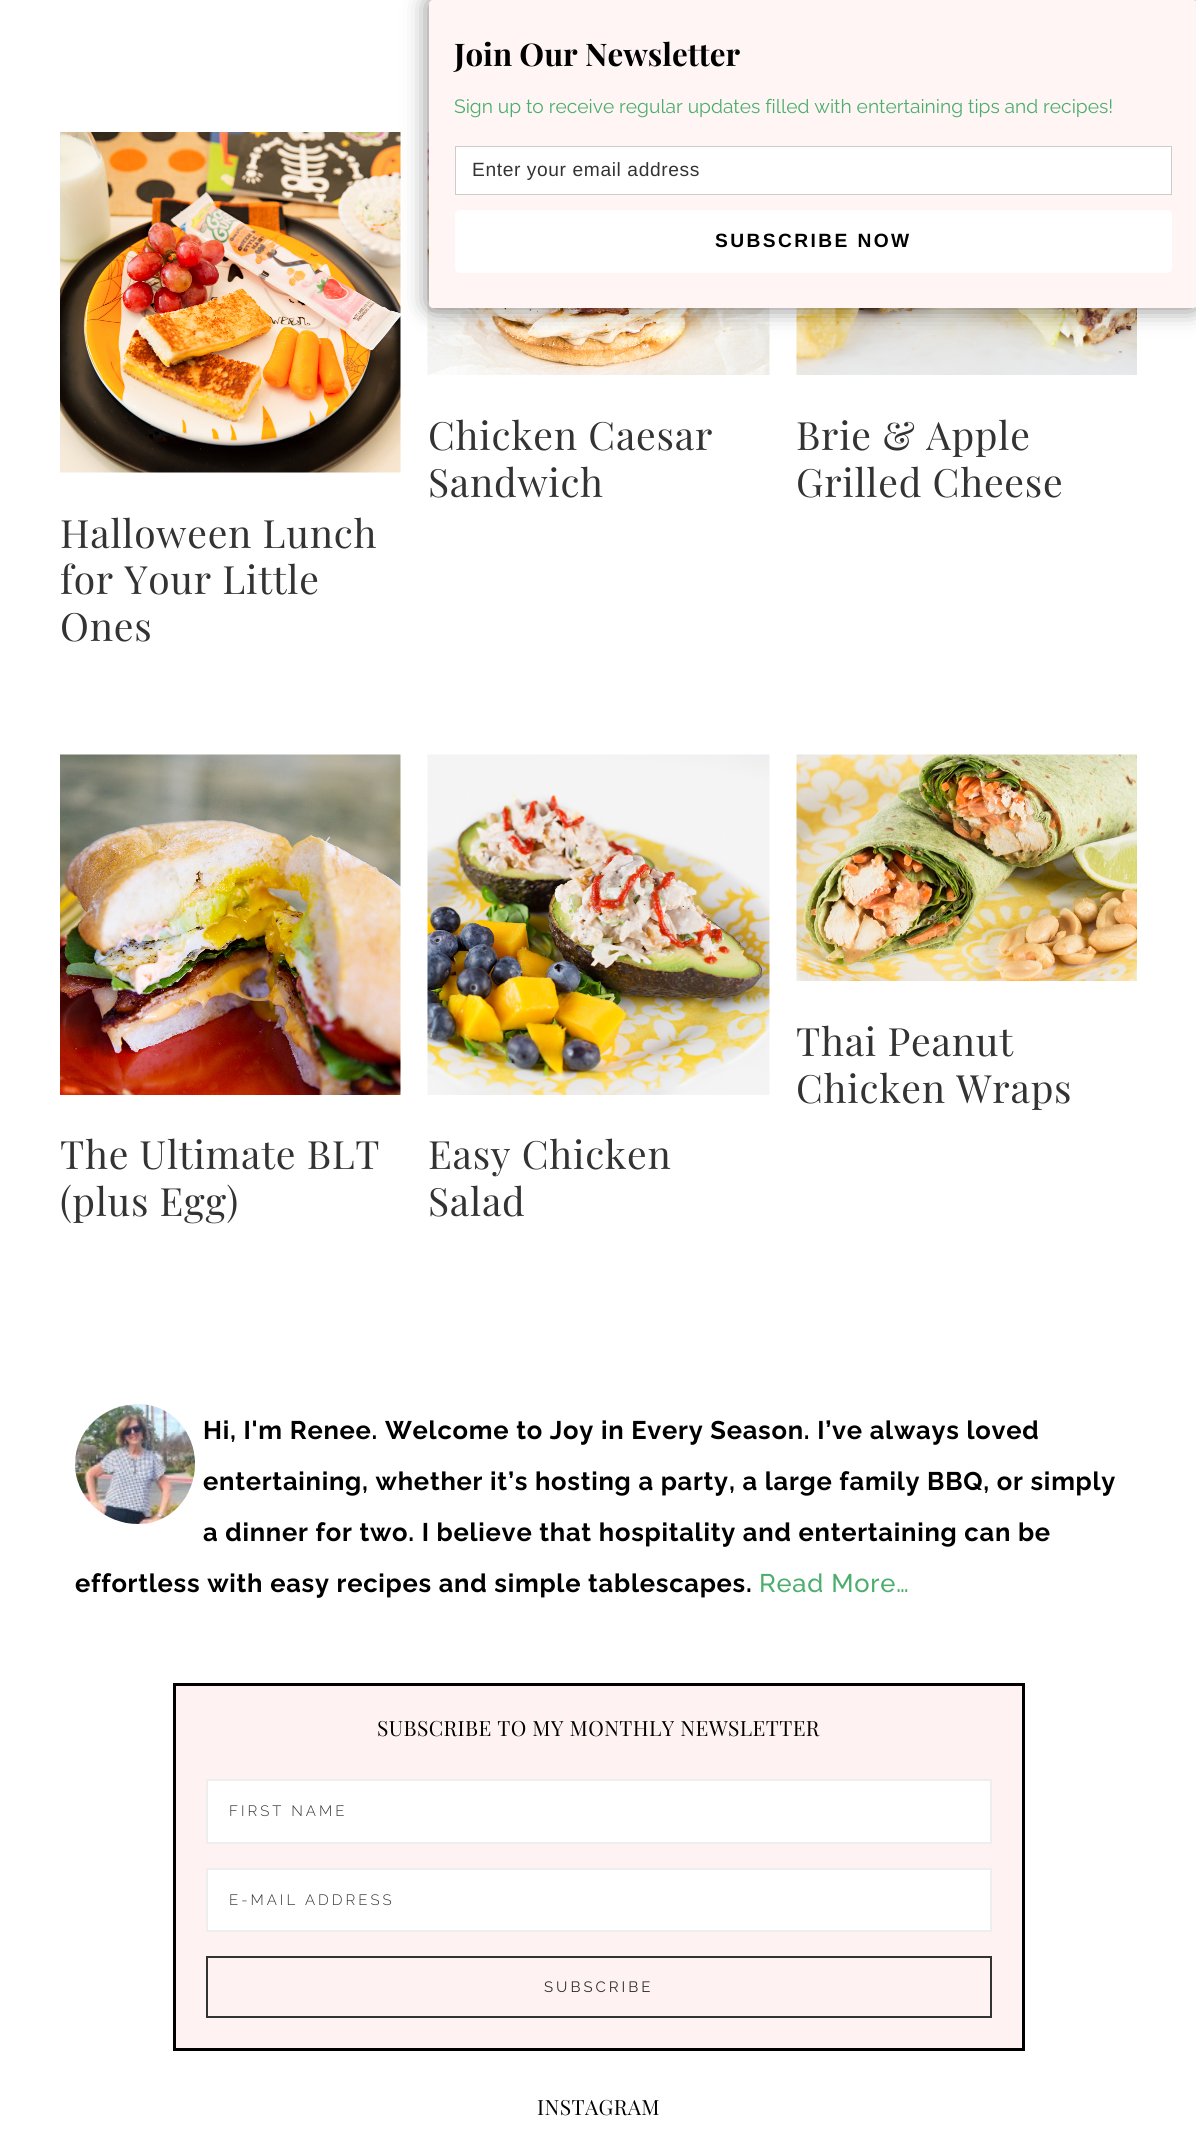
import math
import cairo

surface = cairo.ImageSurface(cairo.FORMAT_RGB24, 1196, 2148)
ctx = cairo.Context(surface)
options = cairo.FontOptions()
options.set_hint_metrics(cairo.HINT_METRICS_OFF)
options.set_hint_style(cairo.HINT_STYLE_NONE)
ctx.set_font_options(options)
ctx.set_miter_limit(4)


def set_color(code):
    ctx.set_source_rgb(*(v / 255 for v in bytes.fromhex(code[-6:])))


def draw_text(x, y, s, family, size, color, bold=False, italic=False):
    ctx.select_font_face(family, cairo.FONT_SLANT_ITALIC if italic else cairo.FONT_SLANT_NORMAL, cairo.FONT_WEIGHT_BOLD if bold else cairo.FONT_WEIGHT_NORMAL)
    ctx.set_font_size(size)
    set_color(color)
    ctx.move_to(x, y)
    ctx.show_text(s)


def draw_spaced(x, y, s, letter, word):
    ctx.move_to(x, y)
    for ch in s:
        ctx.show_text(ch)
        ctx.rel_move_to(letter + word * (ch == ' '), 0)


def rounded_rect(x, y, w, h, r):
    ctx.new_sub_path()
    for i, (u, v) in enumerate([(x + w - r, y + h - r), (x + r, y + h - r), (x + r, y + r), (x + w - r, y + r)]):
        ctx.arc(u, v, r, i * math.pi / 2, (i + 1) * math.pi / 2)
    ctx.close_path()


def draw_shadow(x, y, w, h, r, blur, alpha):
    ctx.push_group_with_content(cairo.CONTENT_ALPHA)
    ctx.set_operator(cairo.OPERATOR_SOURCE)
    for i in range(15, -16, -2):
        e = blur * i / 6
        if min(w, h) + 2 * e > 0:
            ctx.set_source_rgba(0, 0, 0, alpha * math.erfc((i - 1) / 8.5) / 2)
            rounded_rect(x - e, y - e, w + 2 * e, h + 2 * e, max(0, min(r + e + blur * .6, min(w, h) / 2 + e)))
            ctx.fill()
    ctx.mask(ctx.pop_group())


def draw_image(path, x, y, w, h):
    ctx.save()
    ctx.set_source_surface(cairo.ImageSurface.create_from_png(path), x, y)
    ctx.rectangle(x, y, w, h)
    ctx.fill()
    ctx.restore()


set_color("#ffffff")
ctx.paint()
draw_image("assets/img1.png", 427, 132, 343, 243)
draw_image("assets/img2.png", 796, 308, 341, 67)
draw_image("assets/img3.png", 60, 132, 341, 341)
set_color("#000000")
draw_shadow(429, 0, 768, 308, 4, 12, 0.5)
set_color("#fff5f5")
rounded_rect(429, 0, 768, 308, 4)
ctx.fill()
draw_text(454, 66, "Join Our Newsletter", "Playfair Display", 31.25, "#000000", bold=True)
draw_text(454, 113, "Sign up to receive regular updates filled with entertaining tips and recipes!", "Raleway", 19.2, "#4bae6c")
set_color("#ffffff")
ctx.rectangle(455.5, 146.5, 716, 48)
ctx.fill_preserve()
set_color("#cccccc")
ctx.set_line_width(1)
ctx.stroke()
ctx.select_font_face("Liberation Sans")
set_color("#333333")
draw_spaced(472, 176, "Enter your email address", 0.6, 0)
set_color("#ffffff")
rounded_rect(455, 210, 717, 63, 5)
ctx.fill()
ctx.select_font_face("Liberation Sans", cairo.FONT_SLANT_NORMAL, cairo.FONT_WEIGHT_BOLD)
set_color("#000000")
draw_spaced(715, 247, "SUBSCRIBE NOW", 2.4, 0)
ctx.select_font_face("Playfair Display")
ctx.set_font_size(39)
set_color("#333333")
draw_spaced(428, 450, "Chicken Caesar", 0.75, 0)
draw_spaced(428, 497, "Sandwich", 0.75, 0)
draw_spaced(796, 450, "Brie & Apple", 0.75, 0)
draw_spaced(796, 497, "Grilled Cheese", 0.75, 0)
draw_spaced(60, 548, "Halloween Lunch", 0.75, 0)
draw_spaced(60, 594, "for Your Little", 0.75, 0)
draw_spaced(60, 641, "Ones", 0.75, 0)
draw_image("assets/img4.png", 796, 754, 341, 227)
draw_spaced(796, 1056, "Thai Peanut", 0.75, 0)
draw_spaced(796, 1103, "Chicken Wraps", 0.75, 0)
draw_image("assets/img5.png", 60, 754, 341, 341)
draw_spaced(60, 1169, "The Ultimate BLT", 0.75, 0)
draw_spaced(60, 1216, "(plus Egg)", 0.75, 0)
draw_image("assets/img6.png", 427, 754, 343, 341)
draw_spaced(428, 1169, "Easy Chicken", 0.75, 0)
draw_spaced(428, 1216, "Salad", 0.75, 0)
draw_image("assets/img7.png", 75, 1404, 120, 120)
ctx.select_font_face("Raleway", cairo.FONT_SLANT_NORMAL, cairo.FONT_WEIGHT_BOLD)
ctx.set_font_size(25.5)
set_color("#000000")
draw_spaced(203, 1439, "Hi, I'm Renee. Welcome to Joy in Every Season. I’ve always loved", 0.75, 0)
draw_spaced(203, 1490, "entertaining, whether it’s hosting a party, a large family BBQ, or simply", 0.75, 0)
draw_spaced(203, 1541, "a dinner for two. I believe that hospitality and entertaining can be", 0.75, 0)
draw_spaced(75, 1592, "effortless with easy recipes and simple tablescapes.", 0.75, 0)
ctx.select_font_face("Raleway Medium")
set_color("#4bae6c")
draw_spaced(759, 1592, "Read More…", 0.75, 0)
set_color("#fff2f2")
ctx.rectangle(174.5, 1684.5, 849, 365)
ctx.fill_preserve()
set_color("#000000")
ctx.set_line_width(3)
ctx.stroke()
ctx.select_font_face("Playfair Display")
ctx.set_font_size(21)
draw_spaced(377, 1736, "SUBSCRIBE TO MY MONTHLY NEWSLETTER", 0.4, 0)
set_color("#ffffff")
ctx.rectangle(207, 1780, 784, 63)
ctx.fill_preserve()
set_color("#eeeeee")
ctx.set_line_width(2)
ctx.stroke()
ctx.select_font_face("Raleway Light")
ctx.set_font_size(15)
set_color("#333333")
draw_spaced(229, 1816, "FIRST NAME", 3, 0)
set_color("#ffffff")
ctx.rectangle(207, 1869, 784, 62)
ctx.fill_preserve()
set_color("#eeeeee")
ctx.stroke()
set_color("#333333")
draw_spaced(229, 1905, "E-MAIL ADDRESS", 3, 0)
ctx.rectangle(207, 1957, 784, 60)
ctx.stroke()
ctx.select_font_face("Raleway")
draw_spaced(544, 1992, "SUBSCRIBE", 3, 0)
ctx.select_font_face("Playfair Display")
ctx.set_font_size(21)
set_color("#000000")
draw_spaced(537, 2115, "INSTAGRAM", 0.4, 0)
surface.write_to_png("output.png")
